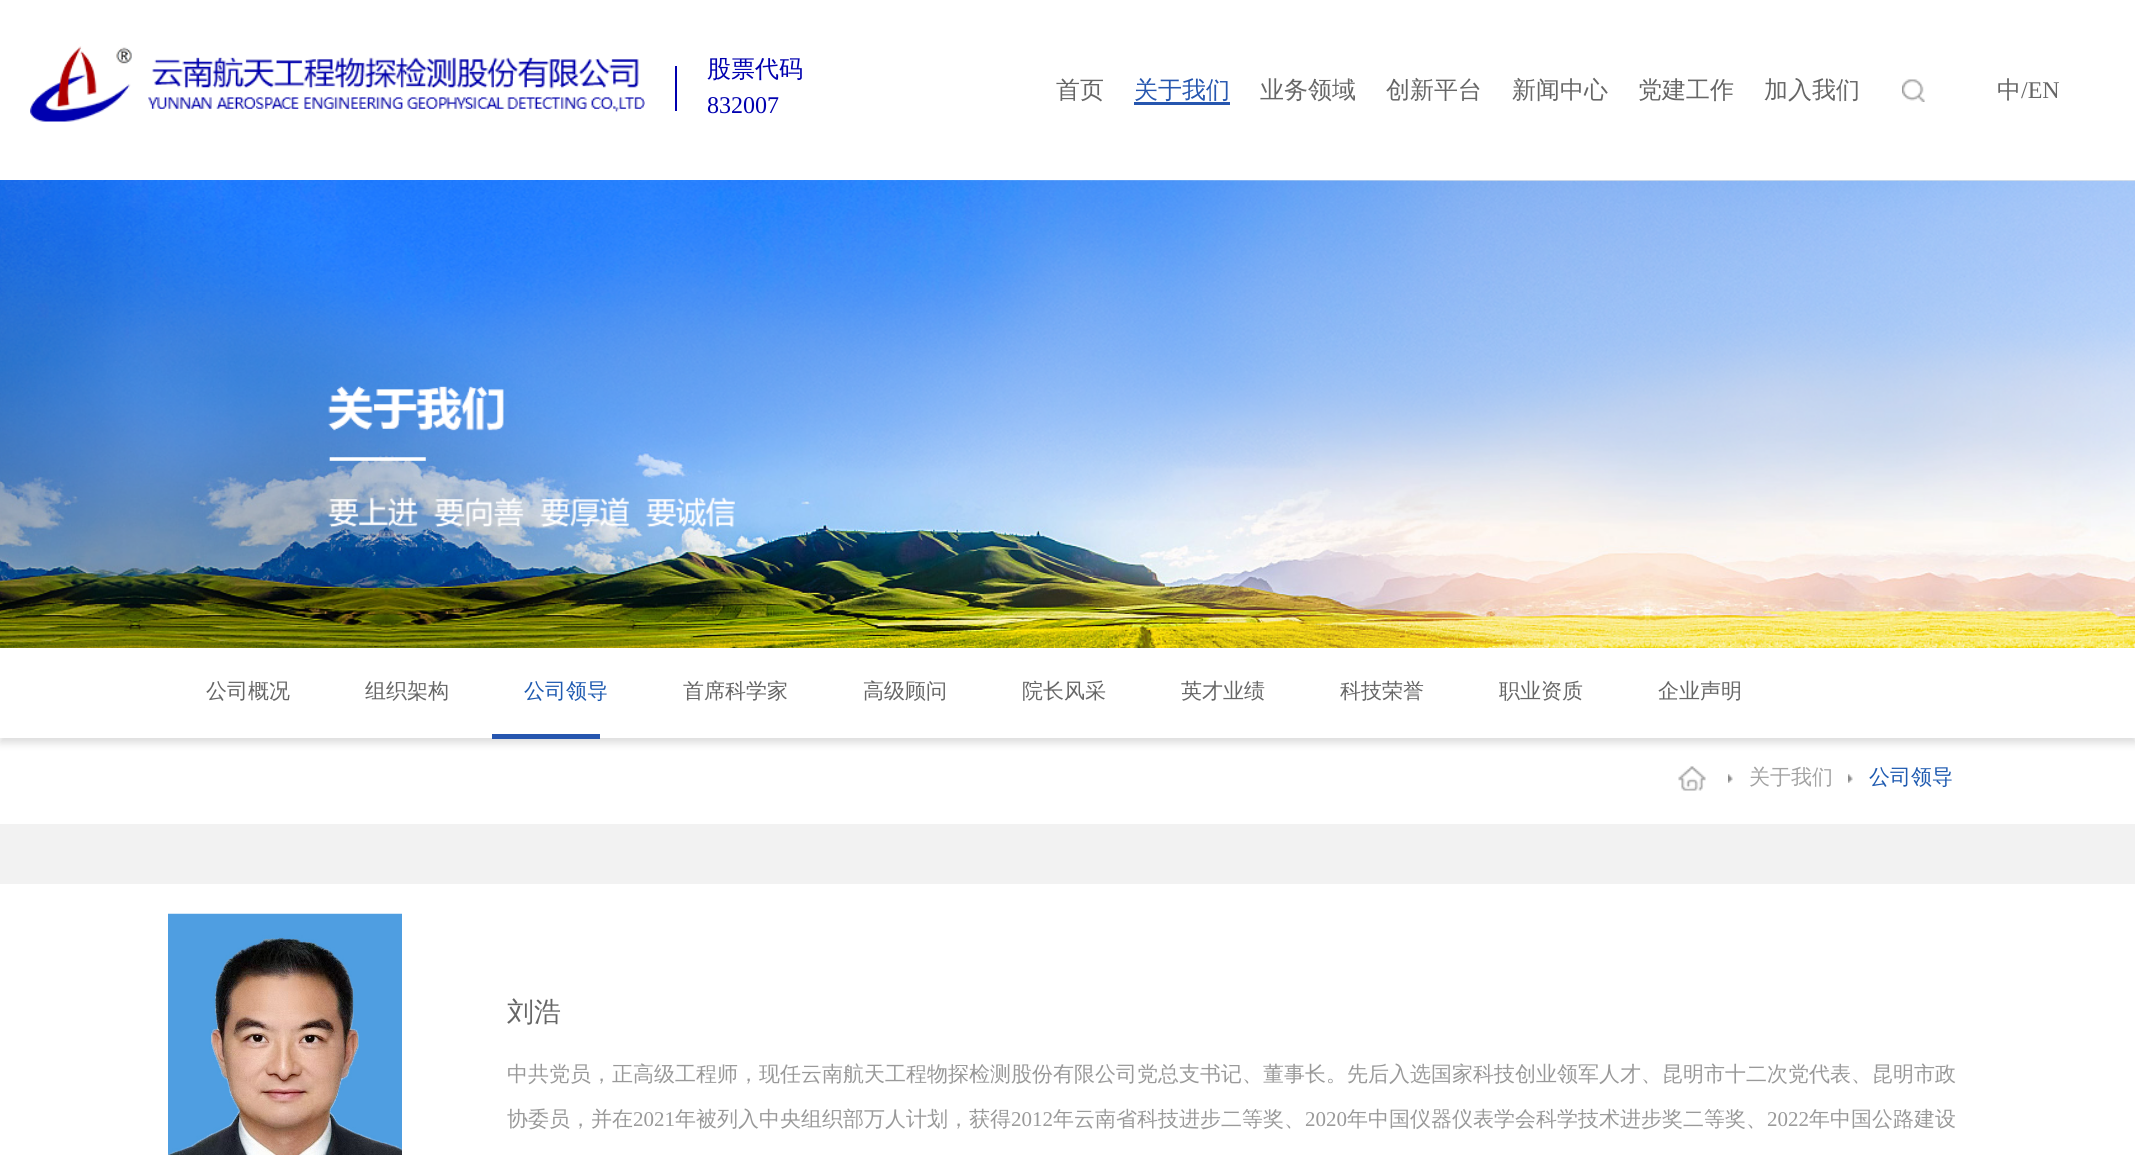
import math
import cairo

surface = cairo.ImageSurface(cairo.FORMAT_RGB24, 2135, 1155)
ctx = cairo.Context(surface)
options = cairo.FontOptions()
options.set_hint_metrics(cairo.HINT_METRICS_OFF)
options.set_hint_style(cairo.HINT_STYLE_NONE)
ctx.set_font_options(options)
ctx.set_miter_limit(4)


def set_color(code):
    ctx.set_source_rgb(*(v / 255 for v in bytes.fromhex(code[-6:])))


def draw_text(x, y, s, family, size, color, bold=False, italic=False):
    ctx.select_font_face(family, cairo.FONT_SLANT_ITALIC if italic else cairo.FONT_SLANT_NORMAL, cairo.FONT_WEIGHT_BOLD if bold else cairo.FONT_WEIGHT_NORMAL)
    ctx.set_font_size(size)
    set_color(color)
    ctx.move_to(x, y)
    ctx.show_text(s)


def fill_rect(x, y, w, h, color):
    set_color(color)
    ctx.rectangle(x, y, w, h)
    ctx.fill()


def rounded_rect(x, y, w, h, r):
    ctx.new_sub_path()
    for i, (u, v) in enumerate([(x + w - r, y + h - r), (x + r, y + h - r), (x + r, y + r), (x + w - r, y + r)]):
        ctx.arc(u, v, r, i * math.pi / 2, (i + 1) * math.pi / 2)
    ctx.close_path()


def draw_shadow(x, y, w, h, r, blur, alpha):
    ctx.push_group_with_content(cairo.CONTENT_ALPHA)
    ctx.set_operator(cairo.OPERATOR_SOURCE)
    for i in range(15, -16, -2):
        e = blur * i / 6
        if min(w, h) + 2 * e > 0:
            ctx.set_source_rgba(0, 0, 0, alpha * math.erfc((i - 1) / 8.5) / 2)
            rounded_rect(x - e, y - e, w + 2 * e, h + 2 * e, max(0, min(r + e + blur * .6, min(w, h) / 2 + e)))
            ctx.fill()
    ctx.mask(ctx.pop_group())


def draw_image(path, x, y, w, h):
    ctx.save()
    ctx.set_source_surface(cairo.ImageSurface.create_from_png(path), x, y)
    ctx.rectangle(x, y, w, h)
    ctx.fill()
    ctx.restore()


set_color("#ffffff")
ctx.paint()
draw_image("assets/img1.png", 30, 46, 615, 76)
fill_rect(675, 66, 2, 45, "#0000af")
draw_text(707, 77, "股票代码", "WenQuanYi Zen Hei Medium", 24, "#0000af")
draw_text(707, 113, "832007", "Liberation Serif", 24, "#0000af")
draw_text(1056, 98, "首页", "WenQuanYi Zen Hei Medium", 24, "#666666")
draw_text(1134, 98, "关于我们", "WenQuanYi Zen Hei Medium", 24, "#2656af")
fill_rect(1134, 102, 96, 3, "#2656af")
draw_text(1260, 98, "业务领域", "WenQuanYi Zen Hei Medium", 24, "#666666")
draw_text(1386, 98, "创新平台", "WenQuanYi Zen Hei Medium", 24, "#666666")
draw_text(1512, 98, "新闻中心", "WenQuanYi Zen Hei Medium", 24, "#666666")
draw_text(1638, 98, "党建工作", "WenQuanYi Zen Hei Medium", 24, "#666666")
draw_text(1764, 98, "加入我们", "WenQuanYi Zen Hei Medium", 24, "#666666")
draw_image("assets/img2.png", 1902, 79, 23, 23)
draw_text(1997, 98, "中", "WenQuanYi Zen Hei Medium", 24, "#666666")
draw_text(2021, 98, "/EN", "Liberation Serif", 24, "#666666")
ctx.save()
ctx.rectangle(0, 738, 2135, 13)
ctx.clip()
set_color("#dcdcdc")
draw_shadow(0, 653, 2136, 90, 0, 4, 1)
ctx.restore()
draw_image("assets/img3.png", 0, 180, 2135, 468)
draw_text(206, 698, "公司概况", "WenQuanYi Zen Hei Medium", 21, "#666666")
draw_text(365, 698, "组织架构", "WenQuanYi Zen Hei Medium", 21, "#666666")
draw_text(524, 698, "公司领导", "WenQuanYi Zen Hei Medium", 21, "#1e5ab0")
draw_text(683, 698, "首席科学家", "WenQuanYi Zen Hei Medium", 21, "#666666")
draw_text(863, 698, "高级顾问", "WenQuanYi Zen Hei Medium", 21, "#666666")
draw_text(1022, 698, "院长风采", "WenQuanYi Zen Hei Medium", 21, "#666666")
draw_text(1181, 698, "英才业绩", "WenQuanYi Zen Hei Medium", 21, "#666666")
draw_text(1340, 698, "科技荣誉", "WenQuanYi Zen Hei Medium", 21, "#666666")
draw_text(1499, 698, "职业资质", "WenQuanYi Zen Hei Medium", 21, "#666666")
draw_text(1658, 698, "企业声明", "WenQuanYi Zen Hei Medium", 21, "#666666")
fill_rect(492, 734, 108, 5, "#2656af")
draw_image("assets/img4.png", 1678, 766, 28, 25)
draw_image("assets/img5.png", 1728, 774, 5, 9)
draw_text(1749, 784, "关于我们", "WenQuanYi Zen Hei Medium", 21, "#a3a3a3")
draw_image("assets/img6.png", 1848, 774, 5, 9)
draw_text(1869, 784, "公司领导", "WenQuanYi Zen Hei Medium", 21, "#1e5ab0")
fill_rect(0, 824, 2135, 60, "#f2f2f2")
draw_image("assets/img7.png", 168, 913, 234, 242)
draw_text(507, 1021, "刘浩", "WenQuanYi Zen Hei Medium", 27, "#666666")
draw_text(507, 1081, "中共党员，正高级工程师，现任云南航天工程物探检测股份有限公司党总支书记、董事长。先后入选国家科技创业领军人才、昆明市十二次党代表、昆明市政", "WenQuanYi Zen Hei Medium", 21, "#999999")
draw_text(507, 1126, "协委员，并在", "WenQuanYi Zen Hei Medium", 21, "#999999")
draw_text(633, 1126, "2021", "Liberation Serif", 21, "#999999")
draw_text(675, 1126, "年被列入中央组织部万人计划，获得", "WenQuanYi Zen Hei Medium", 21, "#999999")
draw_text(1011, 1126, "2012", "Liberation Serif", 21, "#999999")
draw_text(1053, 1126, "年云南省科技进步二等奖、", "WenQuanYi Zen Hei Medium", 21, "#999999")
draw_text(1305, 1126, "2020", "Liberation Serif", 21, "#999999")
draw_text(1347, 1126, "年中国仪器仪表学会科学技术进步奖二等奖、", "WenQuanYi Zen Hei Medium", 21, "#999999")
draw_text(1767, 1126, "2022", "Liberation Serif", 21, "#999999")
draw_text(1809, 1126, "年中国公路建设", "WenQuanYi Zen Hei Medium", 21, "#999999")
surface.write_to_png("output.png")
